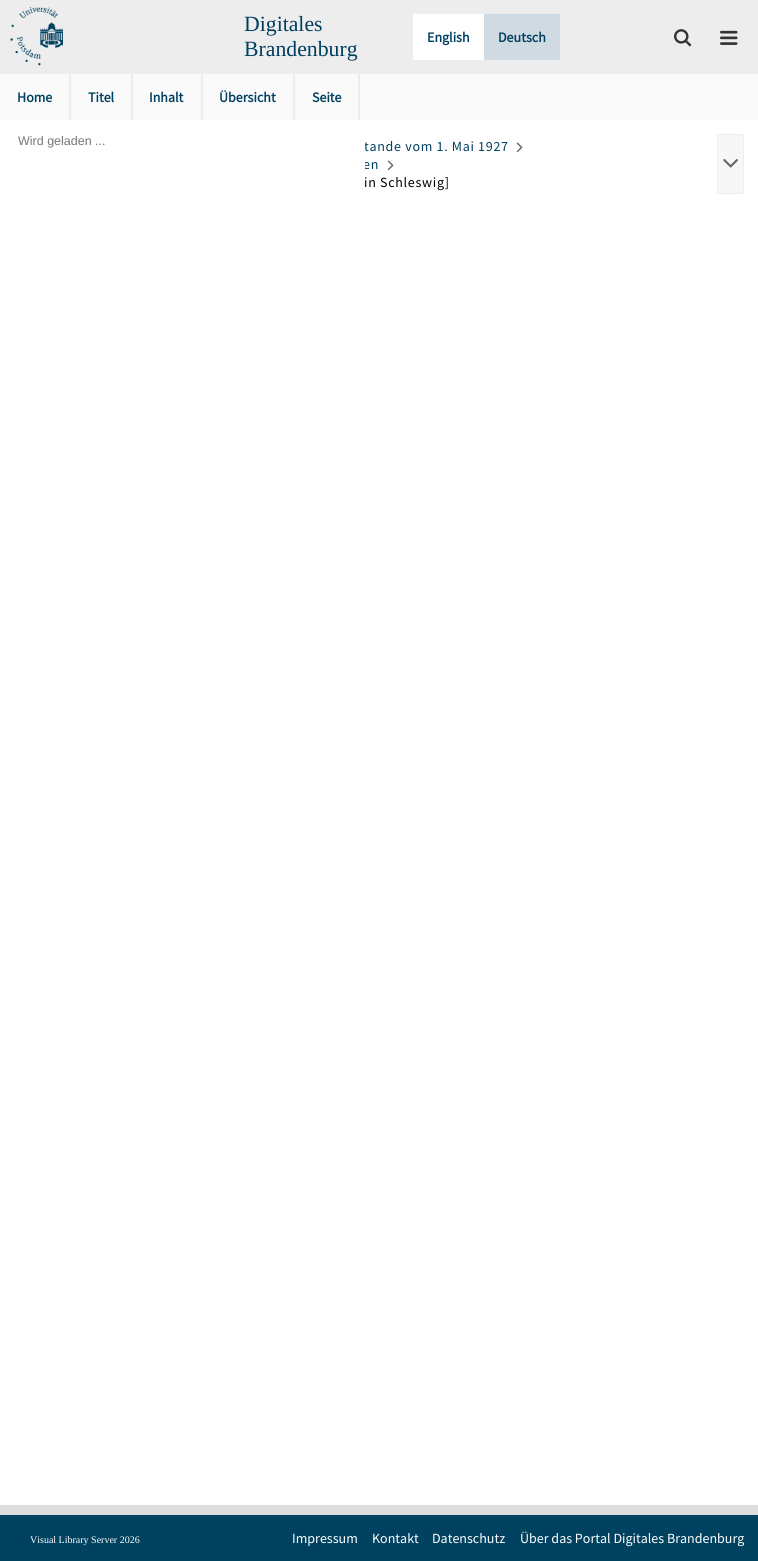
import math
import cairo

surface = cairo.ImageSurface(cairo.FORMAT_RGB24, 758, 1561)
ctx = cairo.Context(surface)
options = cairo.FontOptions()
options.set_hint_metrics(cairo.HINT_METRICS_OFF)
options.set_hint_style(cairo.HINT_STYLE_NONE)
ctx.set_font_options(options)
ctx.set_miter_limit(4)


def set_color(code):
    ctx.set_source_rgb(*(v / 255 for v in bytes.fromhex(code[-6:])))


def draw_text(x, y, s, family, size, color, bold=False, italic=False):
    ctx.select_font_face(family, cairo.FONT_SLANT_ITALIC if italic else cairo.FONT_SLANT_NORMAL, cairo.FONT_WEIGHT_BOLD if bold else cairo.FONT_WEIGHT_NORMAL)
    ctx.set_font_size(size)
    set_color(color)
    ctx.move_to(x, y)
    ctx.show_text(s)


def draw_spaced(x, y, s, letter, word):
    ctx.move_to(x, y)
    for ch in s:
        ctx.show_text(ch)
        ctx.rel_move_to(letter + word * (ch == ' '), 0)


def fill_rect(x, y, w, h, color):
    set_color(color)
    ctx.rectangle(x, y, w, h)
    ctx.fill()


def rounded_rect(x, y, w, h, r):
    ctx.new_sub_path()
    for i, (u, v) in enumerate([(x + w - r, y + h - r), (x + r, y + h - r), (x + r, y + r), (x + w - r, y + r)]):
        ctx.arc(u, v, r, i * math.pi / 2, (i + 1) * math.pi / 2)
    ctx.close_path()


def draw_image(path, x, y, w, h):
    ctx.save()
    ctx.set_source_surface(cairo.ImageSurface.create_from_png(path), x, y)
    ctx.rectangle(x, y, w, h)
    ctx.fill()
    ctx.restore()


set_color("#ffffff")
ctx.paint()
fill_rect(0, 0, 758, 74, "#ededed")
draw_image("assets/img1.png", 10, 7, 53, 59)
draw_text(244, 31, "Digitales", "Liberation Serif", 21.75, "#003f60")
draw_text(244, 56, "Brandenburg", "Liberation Serif", 21.75, "#003f60")
fill_rect(413, 14, 71, 46, "#ffffff")
draw_text(427, 42, "English", "Source Sans Pro", 14, "#003f60", bold=True)
fill_rect(484, 14, 76, 46, "#cfdae3")
draw_text(498, 42, "Deutsch", "Source Sans Pro", 14, "#003f60", bold=True)
draw_image("assets/img2.png", 674, 29, 18, 18)
draw_image("assets/img3.png", 720, 30, 18, 15)
fill_rect(0, 74, 758, 46, "#fafafa")
fill_rect(69, 74, 2, 46, "#ededed")
draw_text(17, 102, "Home", "Source Sans Pro", 14, "#003f60", bold=True)
fill_rect(131, 74, 2, 46, "#ededed")
draw_text(88, 102, "Titel", "Source Sans Pro", 14, "#003f60", bold=True)
fill_rect(201, 74, 2, 46, "#ededed")
draw_text(149, 102, "Inhalt", "Source Sans Pro", 14, "#003f60", bold=True)
fill_rect(293, 74, 2, 46, "#ededed")
draw_text(219, 102, "Übersicht", "Source Sans Pro", 14, "#003f60", bold=True)
fill_rect(358, 74, 2, 46, "#ededed")
draw_text(312, 102, "Seite", "Source Sans Pro", 14, "#003f60", bold=True)
ctx.select_font_face("Source Sans Pro")
draw_spaced(364, 151, "tande vom 1. Mai 1927", 0.7, 0)
draw_spaced(363, 169, "en", 0.7, 0)
fill_rect(363, 144, 2, 25, "#ffffff")
draw_text(18, 145, "Wird geladen ...", "Liberation Sans", 12.5, "#777777")
draw_image("assets/img4.png", 516, 142, 7, 11)
draw_image("assets/img4.png", 387, 160, 7, 11)
ctx.select_font_face("Source Sans Pro")
ctx.set_font_size(14)
set_color("#000000")
draw_spaced(364, 187, "in Schleswig]", 0.7, 0)
set_color("#f7f7f8")
rounded_rect(717.5, 134.5, 26, 59, 1.5)
ctx.fill_preserve()
set_color("#eeeeee")
ctx.set_line_width(1)
ctx.stroke()
draw_image("assets/img5.png", 723, 159, 15, 9)
fill_rect(0, 1515, 758, 46, "#004260")
fill_rect(0, 1505, 758, 10, "#dedede")
draw_text(30, 1543, "Visual Library Server 2026", "Liberation Serif", 10, "#ffffff")
draw_text(292, 1543, "Impressum", "Source Sans Pro", 14, "#ffffff")
draw_text(372, 1543, "Kontakt", "Source Sans Pro", 14, "#ffffff")
draw_text(432, 1543, "Datenschutz", "Source Sans Pro", 14, "#ffffff")
draw_text(520, 1543, "Über das Portal Digitales Brandenburg", "Source Sans Pro", 14, "#ffffff")
surface.write_to_png("output.png")
